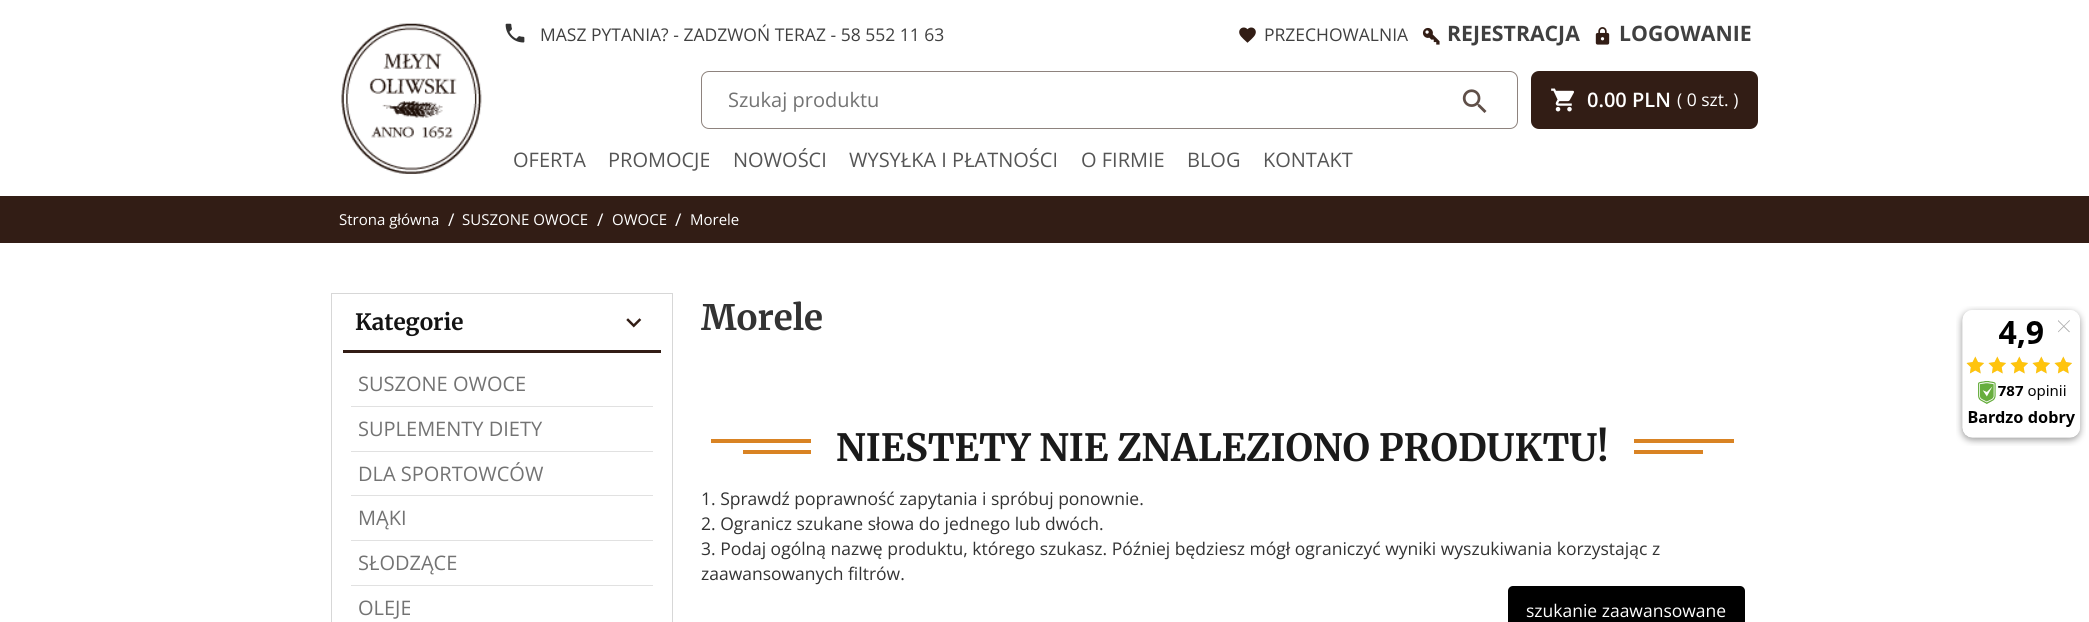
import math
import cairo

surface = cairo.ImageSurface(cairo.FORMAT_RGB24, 2089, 622)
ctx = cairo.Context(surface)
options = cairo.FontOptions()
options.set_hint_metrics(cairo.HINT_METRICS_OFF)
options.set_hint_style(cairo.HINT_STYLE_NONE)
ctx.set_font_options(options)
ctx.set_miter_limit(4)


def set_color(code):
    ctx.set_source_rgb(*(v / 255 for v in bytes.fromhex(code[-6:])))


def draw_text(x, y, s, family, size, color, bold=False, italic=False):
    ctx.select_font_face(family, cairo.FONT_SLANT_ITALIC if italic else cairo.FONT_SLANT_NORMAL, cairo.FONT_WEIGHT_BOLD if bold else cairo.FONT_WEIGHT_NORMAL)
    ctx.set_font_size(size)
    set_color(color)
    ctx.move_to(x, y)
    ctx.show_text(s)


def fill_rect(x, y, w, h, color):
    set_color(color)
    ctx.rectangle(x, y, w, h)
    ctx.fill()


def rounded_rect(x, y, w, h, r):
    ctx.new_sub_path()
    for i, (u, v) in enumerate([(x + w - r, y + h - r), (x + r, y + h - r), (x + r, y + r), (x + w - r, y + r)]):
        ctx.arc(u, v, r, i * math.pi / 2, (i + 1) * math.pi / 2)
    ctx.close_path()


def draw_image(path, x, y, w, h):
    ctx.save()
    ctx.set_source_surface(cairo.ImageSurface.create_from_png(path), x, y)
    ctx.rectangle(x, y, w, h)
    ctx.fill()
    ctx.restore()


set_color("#ffffff")
ctx.paint()
draw_image("assets/img1.png", 341, 23, 141, 151)
draw_image("assets/img2.png", 505, 23, 20, 20)
draw_text(540, 41, "MASZ PYTANIA? - ZADZWOŃ TERAZ - 58 552 11 63", "Open Sans", 17.5, "#404040")
draw_image("assets/img3.png", 1239, 27, 17, 16)
draw_text(1264, 41, "PRZECHOWALNIA", "Open Sans", 17.5, "#404040")
draw_image("assets/img4.png", 1422, 27, 18, 18)
draw_text(1447, 41, "REJESTRACJA", "Open Sans", 21.25, "#404040", bold=True)
draw_image("assets/img5.png", 1595, 27, 15, 18)
draw_text(1619, 41, "LOGOWANIE", "Open Sans", 21.25, "#404040", bold=True)
rounded_rect(701.5, 71.5, 816, 57, 7.5)
set_color("#8e837e")
ctx.set_line_width(1)
ctx.stroke()
draw_text(728, 107, "Szukaj produktu", "Open Sans", 20, "#737373")
draw_image("assets/img6.png", 1462, 89, 25, 24)
set_color("#321d15")
rounded_rect(1531, 71, 227, 58, 8)
ctx.fill()
draw_image("assets/img7.png", 1551, 88, 23, 24)
draw_text(1587, 107, "0.00 PLN", "Open Sans SemiBold", 20, "#ffffff")
draw_text(1677, 106, "( 0 szt. )", "Open Sans", 17.5, "#ffffff")
draw_text(513, 167, "OFERTA", "Open Sans", 20, "#555555")
draw_text(608, 167, "PROMOCJE", "Open Sans", 20, "#555555")
draw_text(733, 167, "NOWOŚCI", "Open Sans", 20, "#555555")
draw_text(849, 167, "WYSYŁKA I PŁATNOŚCI", "Open Sans", 20, "#555555")
draw_text(1081, 167, "O FIRMIE", "Open Sans", 20, "#555555")
draw_text(1187, 167, "BLOG", "Open Sans", 20, "#555555")
draw_text(1263, 167, "KONTAKT", "Open Sans", 20, "#555555")
fill_rect(0, 196, 2089, 47, "#321d15")
draw_text(339, 225, "Strona główna", "Open Sans", 15, "#ffffff")
draw_text(448, 226, "/", "Open Sans", 17.5, "#ffffff")
draw_text(462, 225, "SUSZONE OWOCE", "Open Sans", 15, "#ffffff")
draw_text(597, 226, "/", "Open Sans", 17.5, "#ffffff")
draw_text(612, 225, "OWOCE", "Open Sans", 15, "#ffffff")
draw_text(675, 226, "/", "Open Sans", 17.5, "#ffffff")
draw_text(690, 225, "Morele", "Open Sans", 15, "#ffffff")
ctx.rectangle(331.5, 293.5, 341, 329)
set_color("#d7d7d7")
ctx.stroke()
fill_rect(343, 350, 318, 3, "#321d15")
draw_text(355, 330, "Kategorie", "Merriweather", 22.5, "#131313", bold=True)
draw_image("assets/img8.png", 626, 318, 16, 10)
draw_text(358, 391, "SUSZONE OWOCE", "Open Sans", 20, "#737373")
fill_rect(351, 406, 302, 1, "#e1e1e1")
draw_text(358, 436, "SUPLEMENTY DIETY", "Open Sans", 20, "#737373")
fill_rect(351, 451, 302, 1, "#e1e1e1")
draw_text(358, 481, "DLA SPORTOWCÓW", "Open Sans", 20, "#737373")
fill_rect(351, 495, 302, 1, "#e1e1e1")
draw_text(358, 525, "MĄKI", "Open Sans", 20, "#737373")
fill_rect(351, 540, 302, 1, "#e1e1e1")
draw_text(358, 570, "SŁODZĄCE", "Open Sans", 20, "#737373")
fill_rect(351, 585, 302, 1, "#e1e1e1")
draw_text(358, 615, "OLEJE", "Open Sans", 20, "#737373")
draw_text(701, 330, "Morele", "Merriweather", 35, "#333333", bold=True)
fill_rect(711, 439, 1023, 4, "#d98323")
fill_rect(743, 450, 960, 4, "#d98323")
fill_rect(811, 439, 823, 15, "#ffffff")
draw_text(836, 461, "NIESTETY NIE ZNALEZIONO PRODUKTU!", "Merriweather", 37.5, "#1a1a1a", bold=True)
draw_text(701, 505, "1. Sprawdź poprawność zapytania i spróbuj ponownie.", "Open Sans", 17.5, "#333333")
draw_text(701, 530, "2. Ogranicz szukane słowa do jednego lub dwóch.", "Open Sans", 17.5, "#333333")
draw_text(701, 555, "3. Podaj ogólną nazwę produktu, którego szukasz. Później będziesz mógł ograniczyć wyniki wyszukiwania korzystając z", "Open Sans", 17.5, "#333333")
draw_text(701, 580, "zaawansowanych filtrów.", "Open Sans", 17.5, "#333333")
set_color("#000000")
rounded_rect(1508, 586, 237, 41, 5)
ctx.fill()
draw_text(1526, 617, "szukanie zaawansowane", "Open Sans", 17.5, "#ffffff")
draw_image("assets/img9.png", 1956, 306, 130, 140)
surface.write_to_png("output.png")
